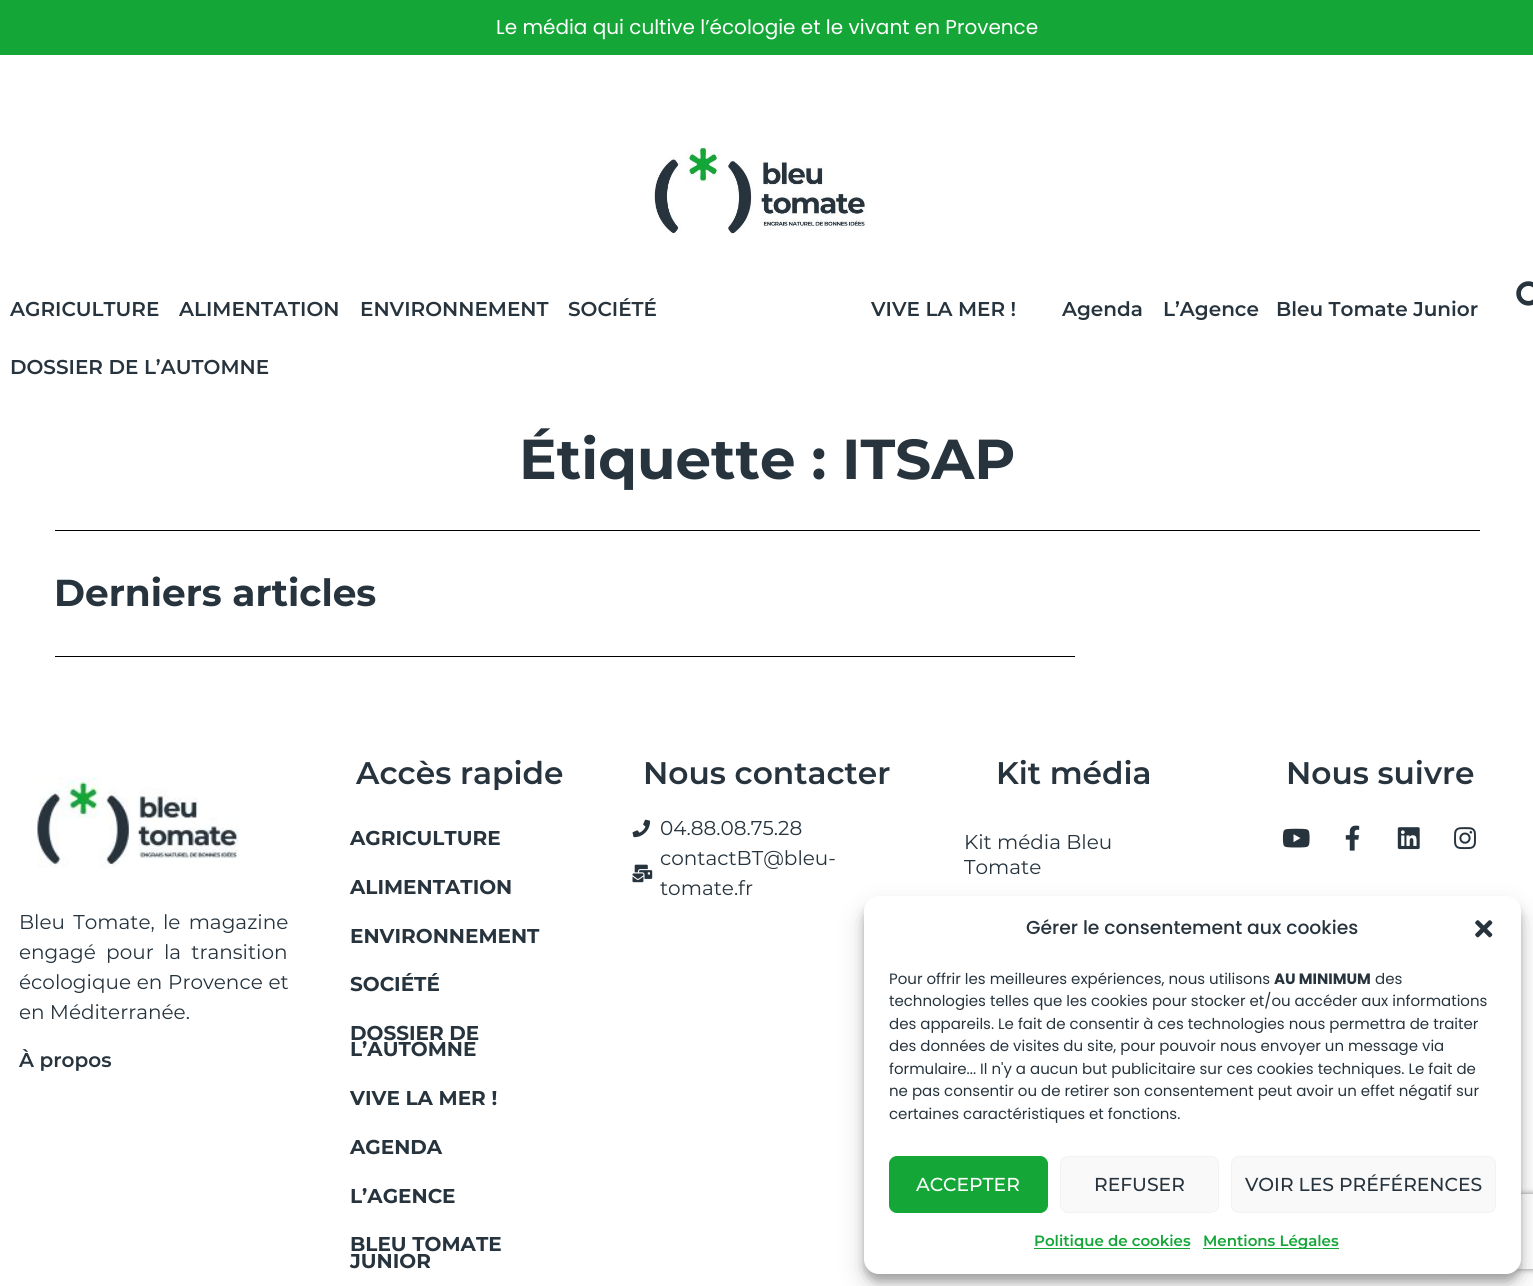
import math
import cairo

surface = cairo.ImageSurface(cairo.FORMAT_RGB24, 1533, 1286)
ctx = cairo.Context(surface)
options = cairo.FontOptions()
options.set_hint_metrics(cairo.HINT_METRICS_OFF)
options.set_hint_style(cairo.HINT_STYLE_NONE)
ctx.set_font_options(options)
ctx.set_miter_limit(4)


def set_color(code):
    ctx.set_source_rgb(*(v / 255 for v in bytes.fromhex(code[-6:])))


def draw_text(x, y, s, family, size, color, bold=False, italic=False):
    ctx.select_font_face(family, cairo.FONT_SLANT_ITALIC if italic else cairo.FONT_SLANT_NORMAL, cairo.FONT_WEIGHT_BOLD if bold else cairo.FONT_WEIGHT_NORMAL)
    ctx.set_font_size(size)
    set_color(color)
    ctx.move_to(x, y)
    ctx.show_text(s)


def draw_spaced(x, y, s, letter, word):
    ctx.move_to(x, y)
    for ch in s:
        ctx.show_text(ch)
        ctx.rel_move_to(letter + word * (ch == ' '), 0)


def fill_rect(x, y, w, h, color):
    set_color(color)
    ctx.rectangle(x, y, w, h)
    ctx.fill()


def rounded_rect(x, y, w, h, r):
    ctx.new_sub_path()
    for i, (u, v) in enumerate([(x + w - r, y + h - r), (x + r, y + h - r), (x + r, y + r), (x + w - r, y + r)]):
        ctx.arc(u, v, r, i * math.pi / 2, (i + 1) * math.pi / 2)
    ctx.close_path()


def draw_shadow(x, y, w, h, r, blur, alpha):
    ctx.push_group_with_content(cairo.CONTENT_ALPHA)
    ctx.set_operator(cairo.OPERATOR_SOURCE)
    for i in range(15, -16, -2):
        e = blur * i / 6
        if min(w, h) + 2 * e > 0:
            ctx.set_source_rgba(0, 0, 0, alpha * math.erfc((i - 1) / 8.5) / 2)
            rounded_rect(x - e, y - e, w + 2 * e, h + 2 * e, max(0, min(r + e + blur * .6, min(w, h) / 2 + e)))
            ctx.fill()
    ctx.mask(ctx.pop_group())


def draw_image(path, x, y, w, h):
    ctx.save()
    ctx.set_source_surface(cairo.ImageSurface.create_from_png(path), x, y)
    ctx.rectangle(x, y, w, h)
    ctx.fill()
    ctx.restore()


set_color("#ffffff")
ctx.paint()
fill_rect(0, 0, 1533, 55, "#14a737")
draw_text(496, 34, "Le média qui cultive l’écologie et le vivant en Provence", "Poppins", 20, "#ffffff")
draw_image("assets/img1.png", 652, 147, 215, 88)
draw_image("assets/img2.png", 1516, 281, 17, 25)
draw_text(10, 316, "AGRICULTURE", "Montserrat SemiBold", 20, "#27343e")
draw_text(179, 316, "ALIMENTATION", "Montserrat SemiBold", 20, "#27343e")
draw_text(360, 316, "ENVIRONNEMENT", "Montserrat SemiBold", 20, "#27343e")
draw_text(568, 316, "SOCIÉTÉ", "Montserrat SemiBold", 20, "#27343e")
draw_text(10, 374, "DOSSIER DE L’AUTOMNE", "Montserrat SemiBold", 20, "#27343e")
draw_text(871, 316, "VIVE LA MER !", "Montserrat SemiBold", 20, "#27343e")
draw_text(1062, 316, "Agenda", "Montserrat SemiBold", 20, "#27343e")
draw_text(1163, 316, "L’Agence", "Montserrat SemiBold", 20, "#27343e")
draw_text(1276, 316, "Bleu Tomate Junior", "Montserrat SemiBold", 20, "#27343e")
draw_text(519, 479, "Étiquette : ITSAP", "Montserrat", 56.25, "#27343e", bold=True)
fill_rect(55, 530, 1425, 1, "#000000")
draw_text(54, 606, "Derniers articles", "Montserrat", 37.5, "#27343e", bold=True)
fill_rect(55, 656, 1020, 1, "#000000")
draw_text(356, 784, "Accès rapide", "Montserrat SemiBold", 31.25, "#27343e")
draw_text(350, 845, "AGRICULTURE", "Montserrat", 20, "#27343e", bold=True)
draw_text(350, 894, "ALIMENTATION", "Montserrat", 20, "#27343e", bold=True)
draw_text(350, 943, "ENVIRONNEMENT", "Montserrat", 20, "#27343e", bold=True)
draw_text(350, 991, "SOCIÉTÉ", "Montserrat", 20, "#27343e", bold=True)
draw_text(350, 1040, "DOSSIER DE", "Montserrat", 20, "#27343e", bold=True)
draw_text(350, 1056, "L’AUTOMNE", "Montserrat", 20, "#27343e", bold=True)
draw_text(350, 1105, "VIVE LA MER !", "Montserrat", 20, "#27343e", bold=True)
draw_text(350, 1154, "AGENDA", "Montserrat", 20, "#27343e", bold=True)
draw_text(350, 1203, "L’AGENCE", "Montserrat", 20, "#27343e", bold=True)
draw_text(350, 1251, "BLEU TOMATE", "Montserrat", 20, "#27343e", bold=True)
draw_text(350, 1268, "JUNIOR", "Montserrat", 20, "#27343e", bold=True)
draw_text(643, 784, "Nous contacter", "Montserrat SemiBold", 31.25, "#27343e")
draw_image("assets/img3.png", 632, 819, 18, 19)
draw_text(660, 835, "04.88.08.75.28", "Montserrat", 20, "#27343e")
draw_image("assets/img4.png", 632, 864, 21, 19)
draw_text(660, 865, "contactBT@bleu-", "Montserrat", 20, "#27343e")
draw_text(660, 895, "tomate.fr", "Montserrat", 20, "#27343e")
draw_text(996, 784, "Kit média", "Montserrat SemiBold", 31.25, "#27343e")
draw_text(964, 849, "Kit média Bleu", "Montserrat", 20, "#27343e")
draw_text(964, 874, "Tomate", "Montserrat", 20, "#27343e")
draw_text(1286, 784, "Nous suivre", "Montserrat SemiBold", 31.25, "#27343e")
draw_image("assets/img5.png", 1282, 828, 28, 20)
draw_image("assets/img6.png", 1345, 825, 15, 26)
draw_image("assets/img7.png", 1397, 827, 23, 23)
draw_image("assets/img8.png", 1454, 827, 22, 23)
draw_image("assets/img9.png", 30, 776, 209, 92)
ctx.select_font_face("Montserrat")
ctx.set_font_size(20)
draw_spaced(19, 929, "Bleu Tomate, le magazine", 0, 3)
draw_spaced(19, 959, "engagé pour la transition", 0, 5)
draw_spaced(19, 989, "écologique en Provence et", 0, 0.5)
draw_text(19, 1019, "en Méditerranée.", "Montserrat", 20, "#27343e")
draw_text(19, 1067, "À propos", "Montserrat SemiBold", 20, "#27343e")
set_color("#000000")
draw_shadow(864, 904, 657, 377, 15, 4, 0.23)
draw_shadow(864, 909, 657, 377, 15, 12.5, 0.19)
ctx.save()
ctx.set_fill_rule(cairo.FILL_RULE_EVEN_ODD)
ctx.new_path()
ctx.move_to(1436, 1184)
ctx.line_to(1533, 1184)
ctx.line_to(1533, 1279)
ctx.line_to(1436, 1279)
ctx.close_path()
ctx.move_to(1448.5, 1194)
ctx.line_to(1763.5, 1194)
ctx.curve_to(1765, 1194, 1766, 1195, 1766, 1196.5)
ctx.line_to(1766, 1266.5)
ctx.curve_to(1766, 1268, 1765, 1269, 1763.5, 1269)
ctx.line_to(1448.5, 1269)
ctx.curve_to(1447, 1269, 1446, 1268, 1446, 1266.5)
ctx.line_to(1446, 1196.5)
ctx.curve_to(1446, 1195, 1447, 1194, 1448.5, 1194)
ctx.close_path()
ctx.clip()
set_color("#808080")
draw_shadow(1446, 1194, 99, 75, 2.5, 3, 1)
ctx.restore()
set_color("#ffffff")
rounded_rect(864, 896, 657, 378, 15)
ctx.fill()
draw_text(1026, 934, "Gérer le consentement aux cookies", "Poppins Medium", 18.75, "#27343e")
draw_image("assets/img10.png", 1475, 920, 18, 18)
draw_text(889, 984, "Pour offrir les meilleures expériences, nous utilisons", "Poppins", 15, "#27343e")
draw_text(1274, 984, "AU MINIMUM", "Poppins", 15, "#27343e", bold=True)
draw_text(1375, 984, "des", "Poppins", 15, "#27343e")
draw_text(889, 1006, "technologies telles que les cookies pour stocker et/ou accéder aux informations", "Poppins", 15, "#27343e")
draw_text(889, 1029, "des appareils. Le fait de consentir à ces technologies nous permettra de traiter", "Poppins", 15, "#27343e")
draw_text(889, 1051, "des données de visites du site, pour pouvoir nous envoyer un message via", "Poppins", 15, "#27343e")
draw_text(889, 1074, "formulaire... Il n'y a aucun but publicitaire sur ces cookies techniques. Le fait de", "Poppins", 15, "#27343e")
draw_text(889, 1096, "ne pas consentir ou de retirer son consentement peut avoir un effet négatif sur", "Poppins", 15, "#27343e")
draw_text(889, 1119, "certaines caractéristiques et fonctions.", "Poppins", 15, "#27343e")
set_color("#14a737")
rounded_rect(889.5, 1156.5, 158, 56, 7.5)
ctx.fill_preserve()
ctx.set_line_width(1)
ctx.stroke()
draw_text(916, 1191, "ACCEPTER", "Montserrat Medium", 18.75, "#ffffff")
set_color("#f9f9f9")
rounded_rect(1060.5, 1156.5, 158, 56, 7.5)
ctx.fill_preserve()
set_color("#f2f2f2")
ctx.stroke()
draw_text(1094, 1191, "REFUSER", "Montserrat Medium", 18.75, "#27343e")
set_color("#f9f9f9")
rounded_rect(1231.5, 1156.5, 264, 56, 7.5)
ctx.fill_preserve()
set_color("#f2f2f2")
ctx.stroke()
draw_text(1245, 1191, "VOIR LES PRÉFÉRENCES", "Montserrat Medium", 18.75, "#27343e")
fill_rect(1034, 1248, 156, 1, "#14a737")
draw_text(1034, 1246, "Politique de cookies", "Montserrat SemiBold", 15, "#14a737")
fill_rect(1203, 1248, 136, 1, "#14a737")
draw_text(1203, 1246, "Mentions Légales", "Montserrat SemiBold", 15, "#14a737")
surface.write_to_png("output.png")
